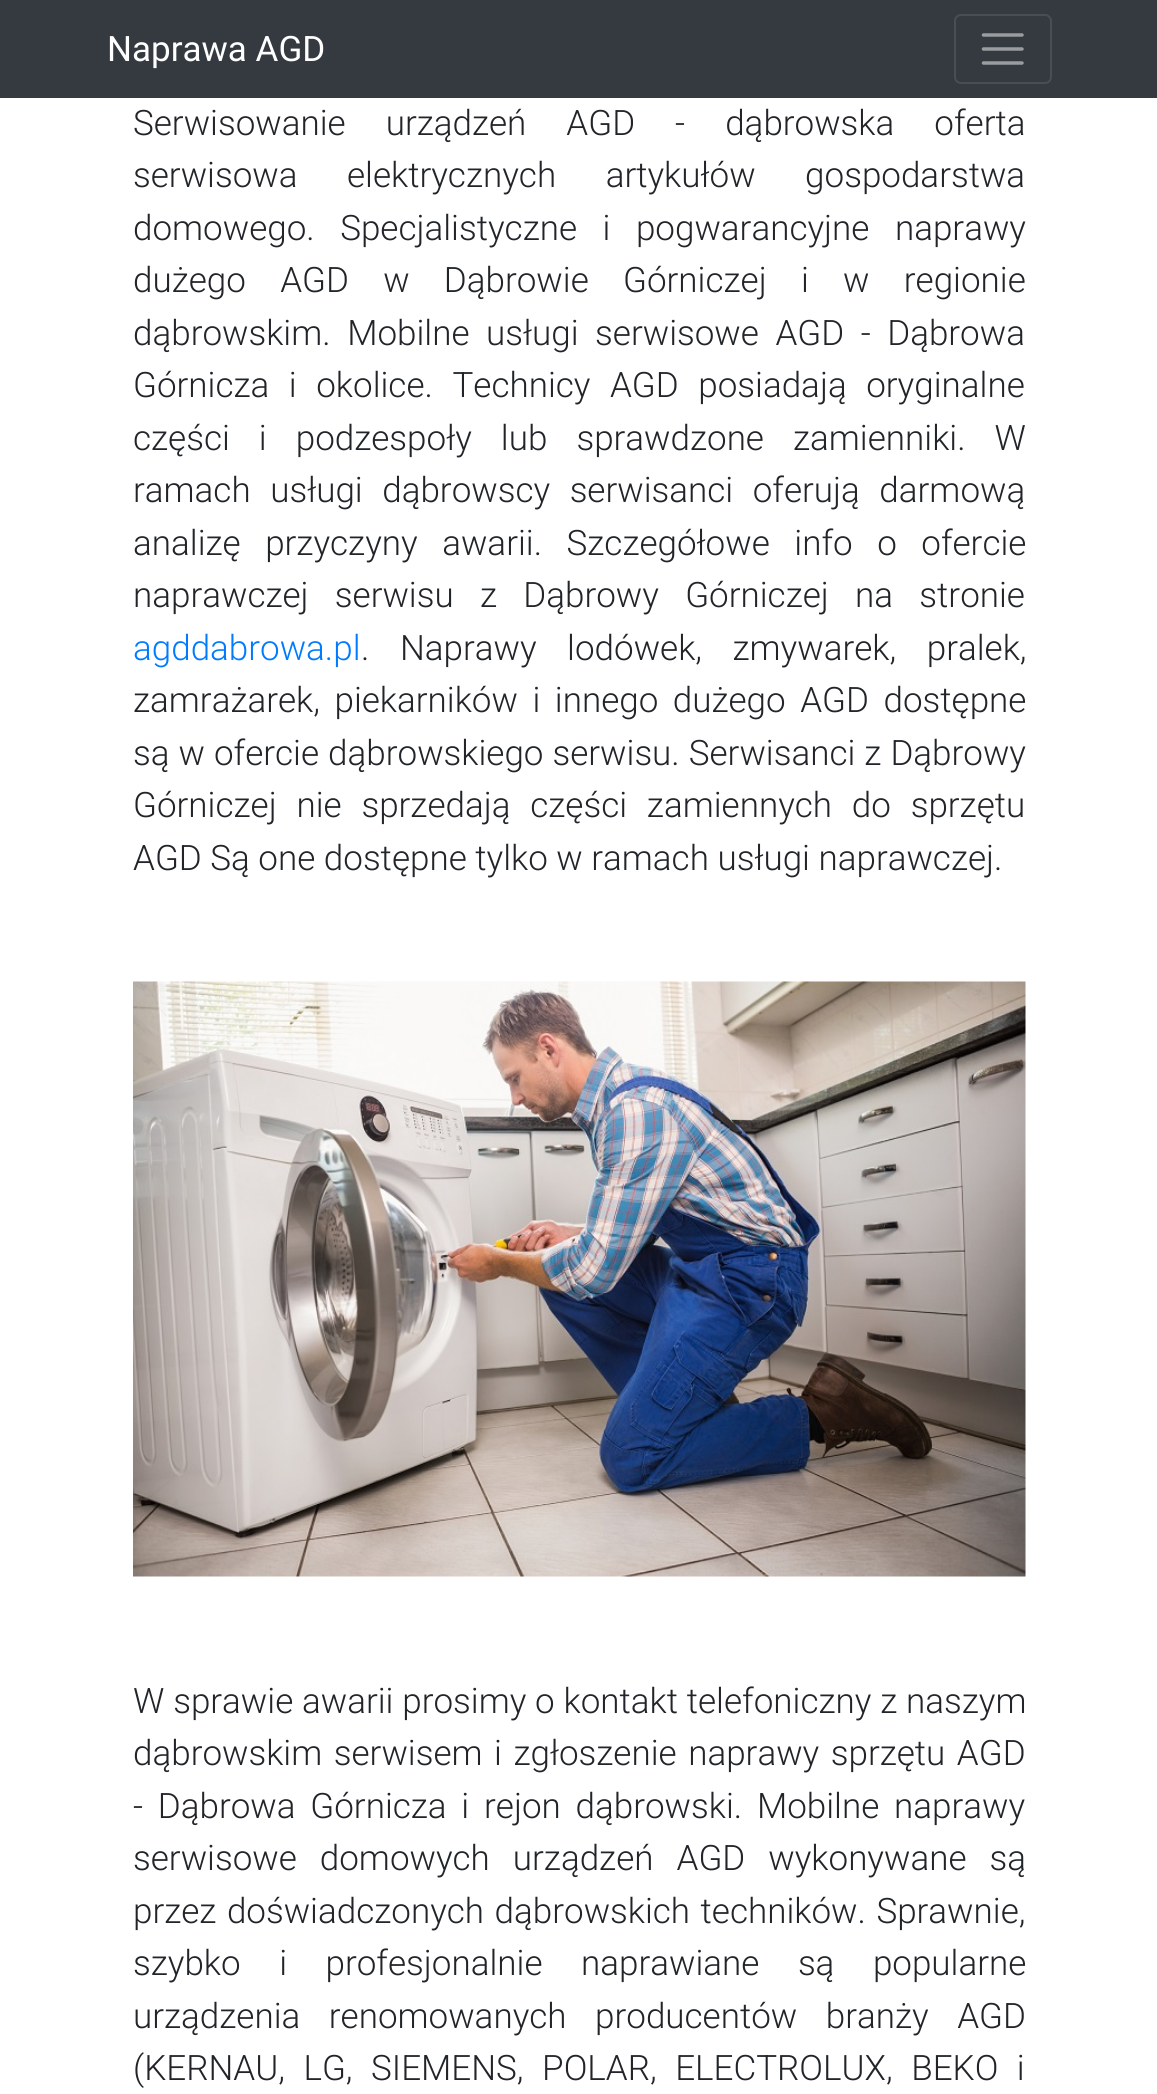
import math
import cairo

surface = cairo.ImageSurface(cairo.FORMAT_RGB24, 1157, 2094)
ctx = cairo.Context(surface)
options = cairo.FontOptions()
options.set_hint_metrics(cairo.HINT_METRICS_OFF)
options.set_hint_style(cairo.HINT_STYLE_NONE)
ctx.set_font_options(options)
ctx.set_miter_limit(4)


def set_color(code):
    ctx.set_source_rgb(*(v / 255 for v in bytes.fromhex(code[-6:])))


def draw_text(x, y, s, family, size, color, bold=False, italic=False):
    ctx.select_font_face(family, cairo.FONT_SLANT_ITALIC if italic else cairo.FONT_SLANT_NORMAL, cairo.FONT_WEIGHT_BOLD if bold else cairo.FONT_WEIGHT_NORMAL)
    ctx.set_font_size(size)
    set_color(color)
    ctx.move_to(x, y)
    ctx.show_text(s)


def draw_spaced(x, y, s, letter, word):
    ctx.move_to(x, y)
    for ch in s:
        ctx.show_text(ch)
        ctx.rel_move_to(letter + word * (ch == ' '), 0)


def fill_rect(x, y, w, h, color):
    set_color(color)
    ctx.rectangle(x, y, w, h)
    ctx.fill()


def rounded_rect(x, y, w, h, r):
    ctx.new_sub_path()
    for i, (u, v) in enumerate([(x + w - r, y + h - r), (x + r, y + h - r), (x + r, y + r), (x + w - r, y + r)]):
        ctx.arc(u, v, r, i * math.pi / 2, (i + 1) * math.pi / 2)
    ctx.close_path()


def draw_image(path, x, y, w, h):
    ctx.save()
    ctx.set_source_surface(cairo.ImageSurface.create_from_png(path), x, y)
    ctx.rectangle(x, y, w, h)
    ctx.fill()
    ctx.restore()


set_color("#ffffff")
ctx.paint()
fill_rect(0, 0, 1157, 98, "#343a40")
draw_text(107, 61, "Naprawa AGD", "Roboto", 35, "#ffffff")
rounded_rect(955, 15, 96, 68, 6)
set_color("#484e53")
ctx.stroke()
ctx.new_path()
ctx.move_to(983.5, 35)
ctx.line_to(1022, 35)
ctx.move_to(983.5, 49)
ctx.line_to(1022, 49)
ctx.move_to(983.5, 63)
ctx.line_to(1022, 63)
set_color("#9a9da0")
ctx.set_line_width(3.5)
ctx.set_line_cap(cairo.LINE_CAP_ROUND)
ctx.stroke()
ctx.select_font_face("Roboto Light")
set_color("#212529")
draw_spaced(133, 135, "Serwisowanie urządzeń AGD - dąbrowska oferta", 0, 31.5)
draw_spaced(133, 187, "serwisowa elektrycznych artykułów gospodarstwa", 0, 41)
draw_spaced(133, 240, "domowego. Specjalistyczne i pogwarancyjne naprawy", 0, 17)
draw_spaced(133, 292, "dużego AGD w Dąbrowie Górniczej i w regionie", 0, 25.75)
draw_spaced(133, 345, "dąbrowskim. Mobilne usługi serwisowe AGD - Dąbrowa", 0, 8)
draw_spaced(133, 397, "Górnicza i okolice. Technicy AGD posiadają oryginalne", 0, 11)
draw_spaced(133, 450, "części i podzespoły lub sprawdzone zamienniki. W", 0, 20.5)
draw_spaced(133, 502, "ramach usługi dąbrowscy serwisanci oferują darmową", 0, 11)
draw_spaced(133, 555, "analizę przyczyny awarii. Szczegółowe info o ofercie", 0, 16)
draw_spaced(133, 607, "naprawczej serwisu z Dąbrowy Górniczej na stronie", 0, 17.75)
draw_text(133, 660, "agddabrowa.pl", "Roboto Light", 35, "#007bff")
set_color("#212529")
draw_spaced(361, 660, ". Naprawy lodówek, zmywarek, pralek,", 0, 22)
draw_spaced(133, 712, "zamrażarek, piekarników i innego dużego AGD dostępne", 0, 6)
draw_spaced(133, 765, "są w ofercie dąbrowskiego serwisu. Serwisanci z Dąbrowy", 0, 0.5)
draw_spaced(133, 817, "Górniczej nie sprzedają części zamiennych do sprzętu", 0, 11.25)
draw_text(133, 870, "AGD Są one dostępne tylko w ramach usługi naprawczej.", "Roboto Light", 35, "#212529")
draw_image("assets/img1.png", 133, 981, 893, 596)
draw_spaced(133, 1713, "W sprawie awarii prosimy o kontakt telefoniczny z naszym", 0, 0.25)
draw_spaced(133, 1765, "dąbrowskim serwisem i zgłoszenie naprawy sprzętu AGD", 0, 3)
draw_spaced(133, 1818, "- Dąbrowa Górnicza i rejon dąbrowski. Mobilne naprawy", 0, 6.25)
draw_spaced(133, 1870, "serwisowe domowych urządzeń AGD wykonywane są", 0, 14.5)
draw_spaced(133, 1923, "przez doświadczonych dąbrowskich techników. Sprawnie,", 0, 2)
draw_spaced(133, 1975, "szybko i profesjonalnie naprawiane są popularne", 0, 30)
draw_spaced(133, 2028, "urządzenia renomowanych producentów branży AGD", 0, 20)
draw_spaced(133, 2080, "(KERNAU, LG, SIEMENS, POLAR, ELECTROLUX, BEKO i", 0, 10)
surface.write_to_png("output.png")
